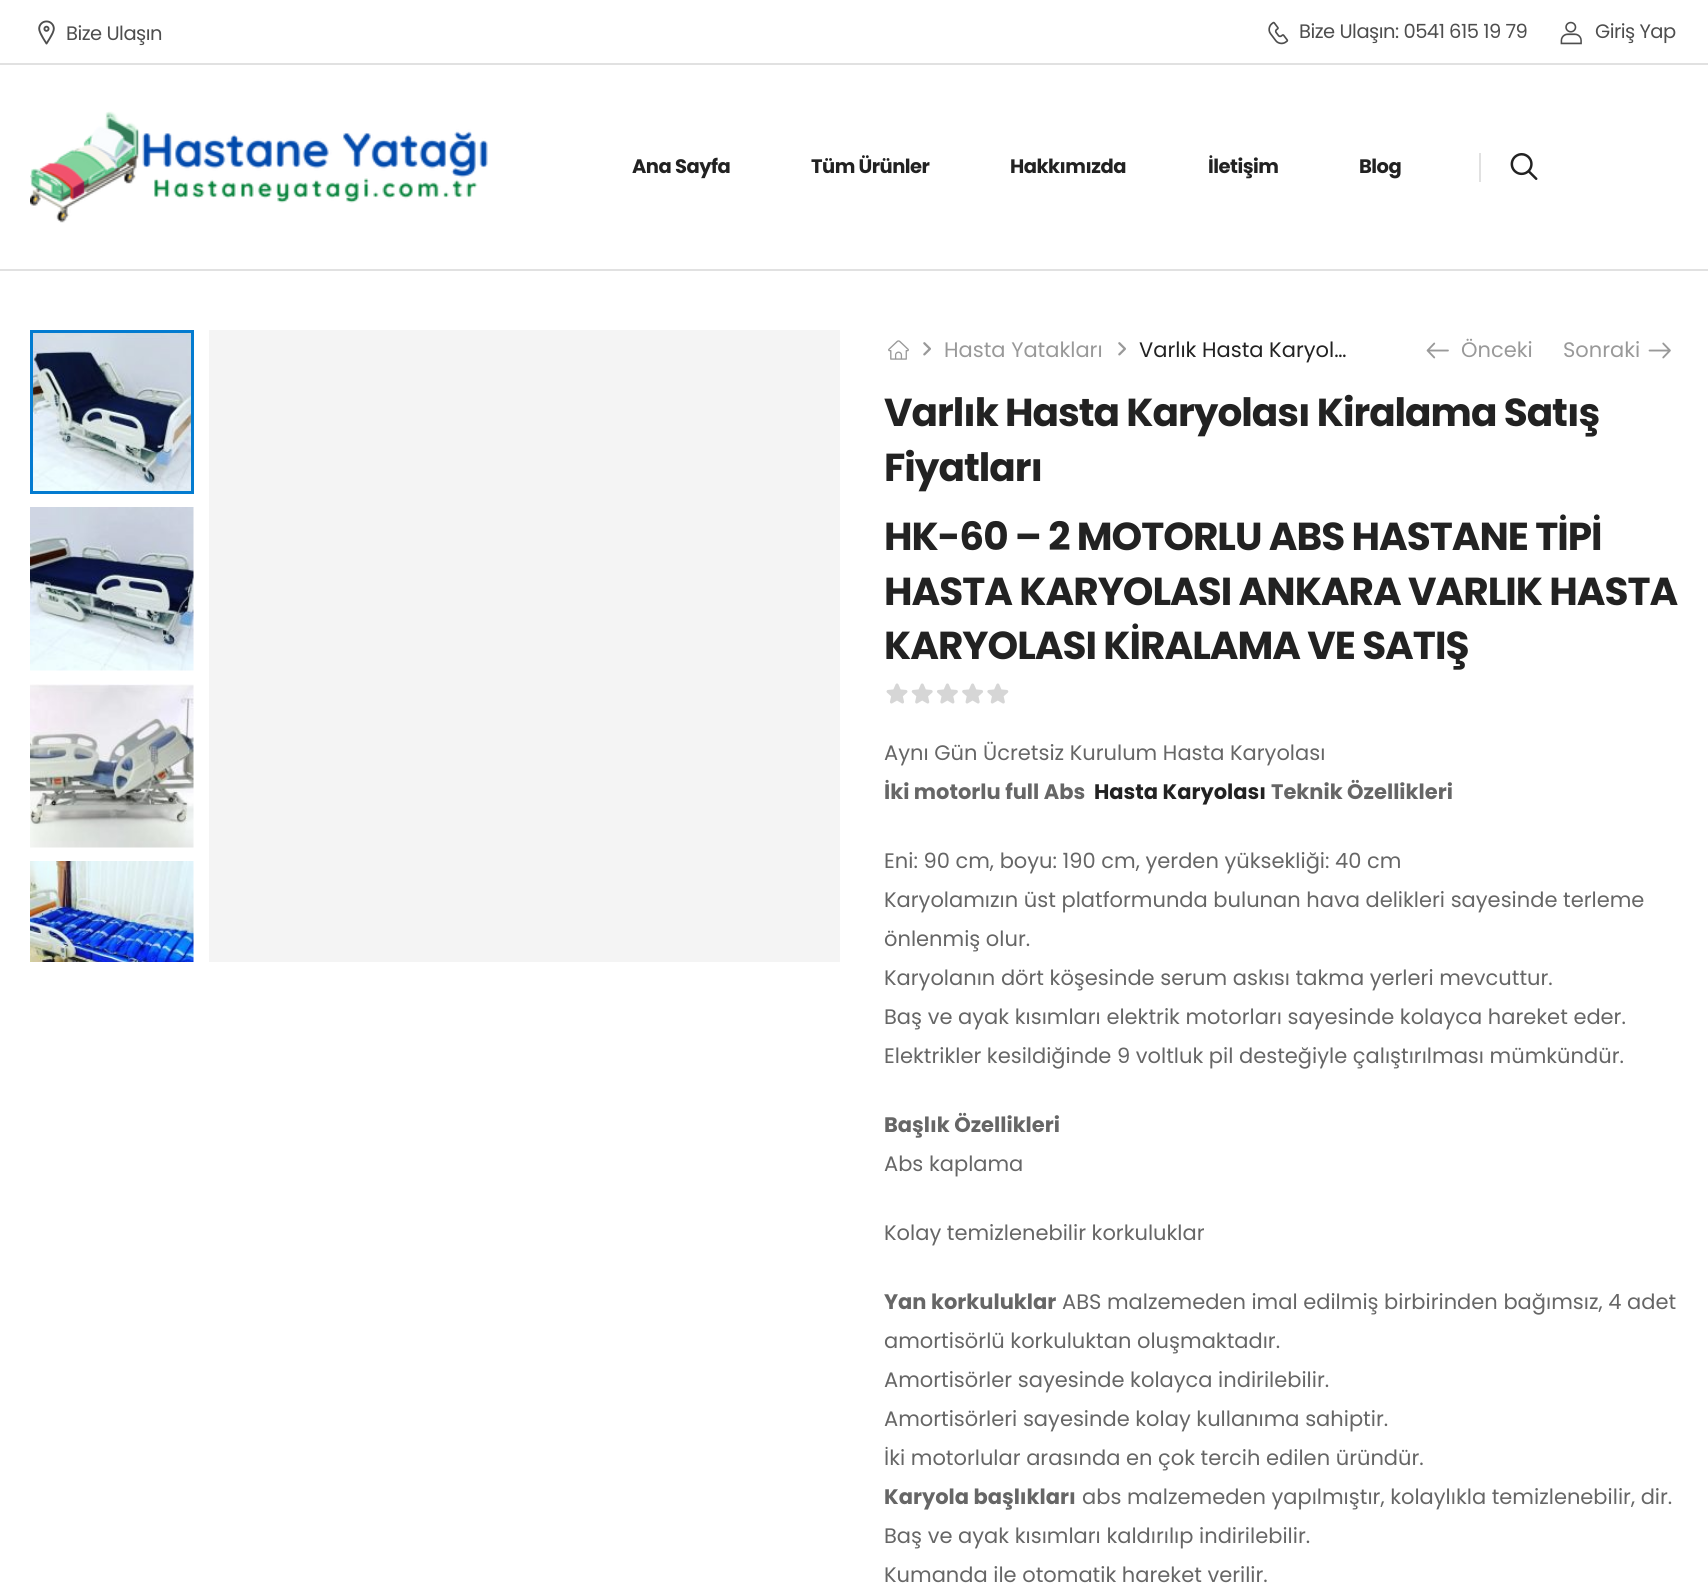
import math
import cairo

surface = cairo.ImageSurface(cairo.FORMAT_RGB24, 1708, 1588)
ctx = cairo.Context(surface)
options = cairo.FontOptions()
options.set_hint_metrics(cairo.HINT_METRICS_OFF)
options.set_hint_style(cairo.HINT_STYLE_NONE)
ctx.set_font_options(options)
ctx.set_miter_limit(4)


def set_color(code):
    ctx.set_source_rgb(*(v / 255 for v in bytes.fromhex(code[-6:])))


def draw_text(x, y, s, family, size, color, bold=False, italic=False):
    ctx.select_font_face(family, cairo.FONT_SLANT_ITALIC if italic else cairo.FONT_SLANT_NORMAL, cairo.FONT_WEIGHT_BOLD if bold else cairo.FONT_WEIGHT_NORMAL)
    ctx.set_font_size(size)
    set_color(color)
    ctx.move_to(x, y)
    ctx.show_text(s)


def draw_spaced(x, y, s, letter, word):
    ctx.move_to(x, y)
    for ch in s:
        ctx.show_text(ch)
        ctx.rel_move_to(letter + word * (ch == ' '), 0)


def fill_rect(x, y, w, h, color):
    set_color(color)
    ctx.rectangle(x, y, w, h)
    ctx.fill()


def draw_image(path, x, y, w, h):
    ctx.save()
    ctx.set_source_surface(cairo.ImageSurface.create_from_png(path), x, y)
    ctx.rectangle(x, y, w, h)
    ctx.fill()
    ctx.restore()


set_color("#ffffff")
ctx.paint()
draw_image("assets/img1.png", 38, 20, 17, 25)
ctx.select_font_face("Poppins")
ctx.set_font_size(19.5)
set_color("#4e4e4e")
draw_spaced(66, 40, "Bize Ulaşın", -0.5, 0)
draw_image("assets/img2.png", 1268, 21, 21, 24)
draw_spaced(1299, 38, "Bize Ulaşın: 0541 615 19 79", -0.5, 0)
draw_image("assets/img3.png", 1560, 21, 22, 24)
draw_spaced(1595, 38, "Giriş Yap", -0.5, 0)
fill_rect(0, 63, 1708, 2, "#e1e1e1")
fill_rect(0, 269, 1708, 2, "#e1e1e1")
draw_image("assets/img4.png", 30, 111, 458, 112)
ctx.select_font_face("Poppins", cairo.FONT_SLANT_NORMAL, cairo.FONT_WEIGHT_BOLD)
set_color("#222222")
draw_spaced(632, 173, "Ana Sayfa", -0.5, 0)
draw_spaced(811, 173, "Tüm Ürünler", -0.5, 0)
draw_spaced(1010, 173, "Hakkımızda", -0.5, 0)
draw_spaced(1208, 173, "İletişim", -0.5, 0)
draw_spaced(1359, 173, "Blog", -0.5, 0)
fill_rect(1479, 153, 2, 29, "#e1e1e1")
draw_image("assets/img5.png", 1510, 153, 28, 27)
draw_image("assets/img6.png", 33, 333, 158, 158)
ctx.rectangle(31.5, 331.5, 161, 161)
set_color("#037bd0")
ctx.set_line_width(3)
ctx.stroke()
draw_image("assets/img7.png", 30, 507, 164, 164)
draw_image("assets/img8.png", 30, 684, 164, 164)
draw_image("assets/img9.png", 30, 861, 164, 101)
fill_rect(209, 330, 631, 632, "#f4f4f4")
draw_image("assets/img10.png", 888, 340, 21, 20)
draw_image("assets/img11.png", 923, 342, 8, 14)
draw_text(944, 357, "Hasta Yatakları", "Poppins", 21, "#999999")
draw_image("assets/img11.png", 1118, 342, 8, 14)
draw_text(1139, 357, "Varlık Hasta Karyol…", "Poppins", 21, "#222222")
draw_image("assets/img12.png", 1426, 342, 23, 17)
draw_text(1461, 357, "Önceki", "Poppins", 21, "#999999")
draw_text(1563, 357, "Sonraki", "Poppins", 21, "#999999")
draw_image("assets/img13.png", 1648, 342, 23, 17)
ctx.select_font_face("Poppins", cairo.FONT_SLANT_NORMAL, cairo.FONT_WEIGHT_BOLD)
ctx.set_font_size(39)
set_color("#222222")
draw_spaced(884, 426, "Varlık Hasta Karyolası Kiralama Satış", -1, 0)
draw_spaced(884, 481, "Fiyatları", -1, 0)
draw_spaced(884, 550, "HK-60 – 2 MOTORLU ABS HASTANE TİPİ", -1, 0)
draw_spaced(884, 605, "HASTA KARYOLASI ANKARA VARLIK HASTA", -1, 0)
draw_spaced(884, 659, "KARYOLASI KİRALAMA VE SATIŞ", -1, 0)
draw_image("assets/img14.png", 886, 683, 123, 21)
draw_text(884, 760, "Aynı Gün Ücretsiz Kurulum Hasta Karyolası", "Poppins", 21, "#666666")
draw_text(884, 799, "İki motorlu full Abs", "Poppins", 21, "#666666", bold=True)
draw_text(1094, 799, "Hasta Karyolası", "Poppins", 21, "#222222", bold=True)
draw_text(1271, 799, "Teknik Özellikleri", "Poppins", 21, "#666666", bold=True)
draw_text(884, 868, "Eni: 90 cm, boyu: 190 cm, yerden yüksekliği: 40 cm", "Poppins", 21, "#666666")
draw_text(884, 907, "Karyolamızın üst platformunda bulunan hava delikleri sayesinde terleme", "Poppins", 21, "#666666")
draw_text(884, 946, "önlenmiş olur.", "Poppins", 21, "#666666")
draw_text(884, 985, "Karyolanın dört köşesinde serum askısı takma yerleri mevcuttur.", "Poppins", 21, "#666666")
draw_text(884, 1024, "Baş ve ayak kısımları elektrik motorları sayesinde kolayca hareket eder.", "Poppins", 21, "#666666")
draw_text(884, 1063, "Elektrikler kesildiğinde 9 voltluk pil desteğiyle çalıştırılması mümkündür.", "Poppins", 21, "#666666")
draw_text(884, 1132, "Başlık Özellikleri", "Poppins", 21, "#666666", bold=True)
draw_text(884, 1171, "Abs kaplama", "Poppins", 21, "#666666")
draw_text(884, 1240, "Kolay temizlenebilir korkuluklar", "Poppins", 21, "#666666")
draw_text(884, 1309, "Yan korkuluklar", "Poppins", 21, "#666666", bold=True)
draw_text(1062, 1309, "ABS malzemeden imal edilmiş birbirinden bağımsız, 4 adet", "Poppins", 21, "#666666")
draw_text(884, 1348, "amortisörlü korkuluktan oluşmaktadır.", "Poppins", 21, "#666666")
draw_text(884, 1387, "Amortisörler sayesinde kolayca indirilebilir.", "Poppins", 21, "#666666")
draw_text(884, 1426, "Amortisörleri sayesinde kolay kullanıma sahiptir.", "Poppins", 21, "#666666")
draw_text(884, 1465, "İki motorlular arasında en çok tercih edilen üründür.", "Poppins", 21, "#666666")
draw_text(884, 1504, "Karyola başlıkları", "Poppins", 21, "#666666", bold=True)
draw_text(1082, 1504, "abs malzemeden yapılmıştır, kolaylıkla temizlenebilir, dir.", "Poppins", 21, "#666666")
draw_text(884, 1543, "Baş ve ayak kısımları kaldırılıp indirilebilir.", "Poppins", 21, "#666666")
draw_text(884, 1582, "Kumanda ile otomatik hareket verilir.", "Poppins", 21, "#666666")
surface.write_to_png("output.png")
